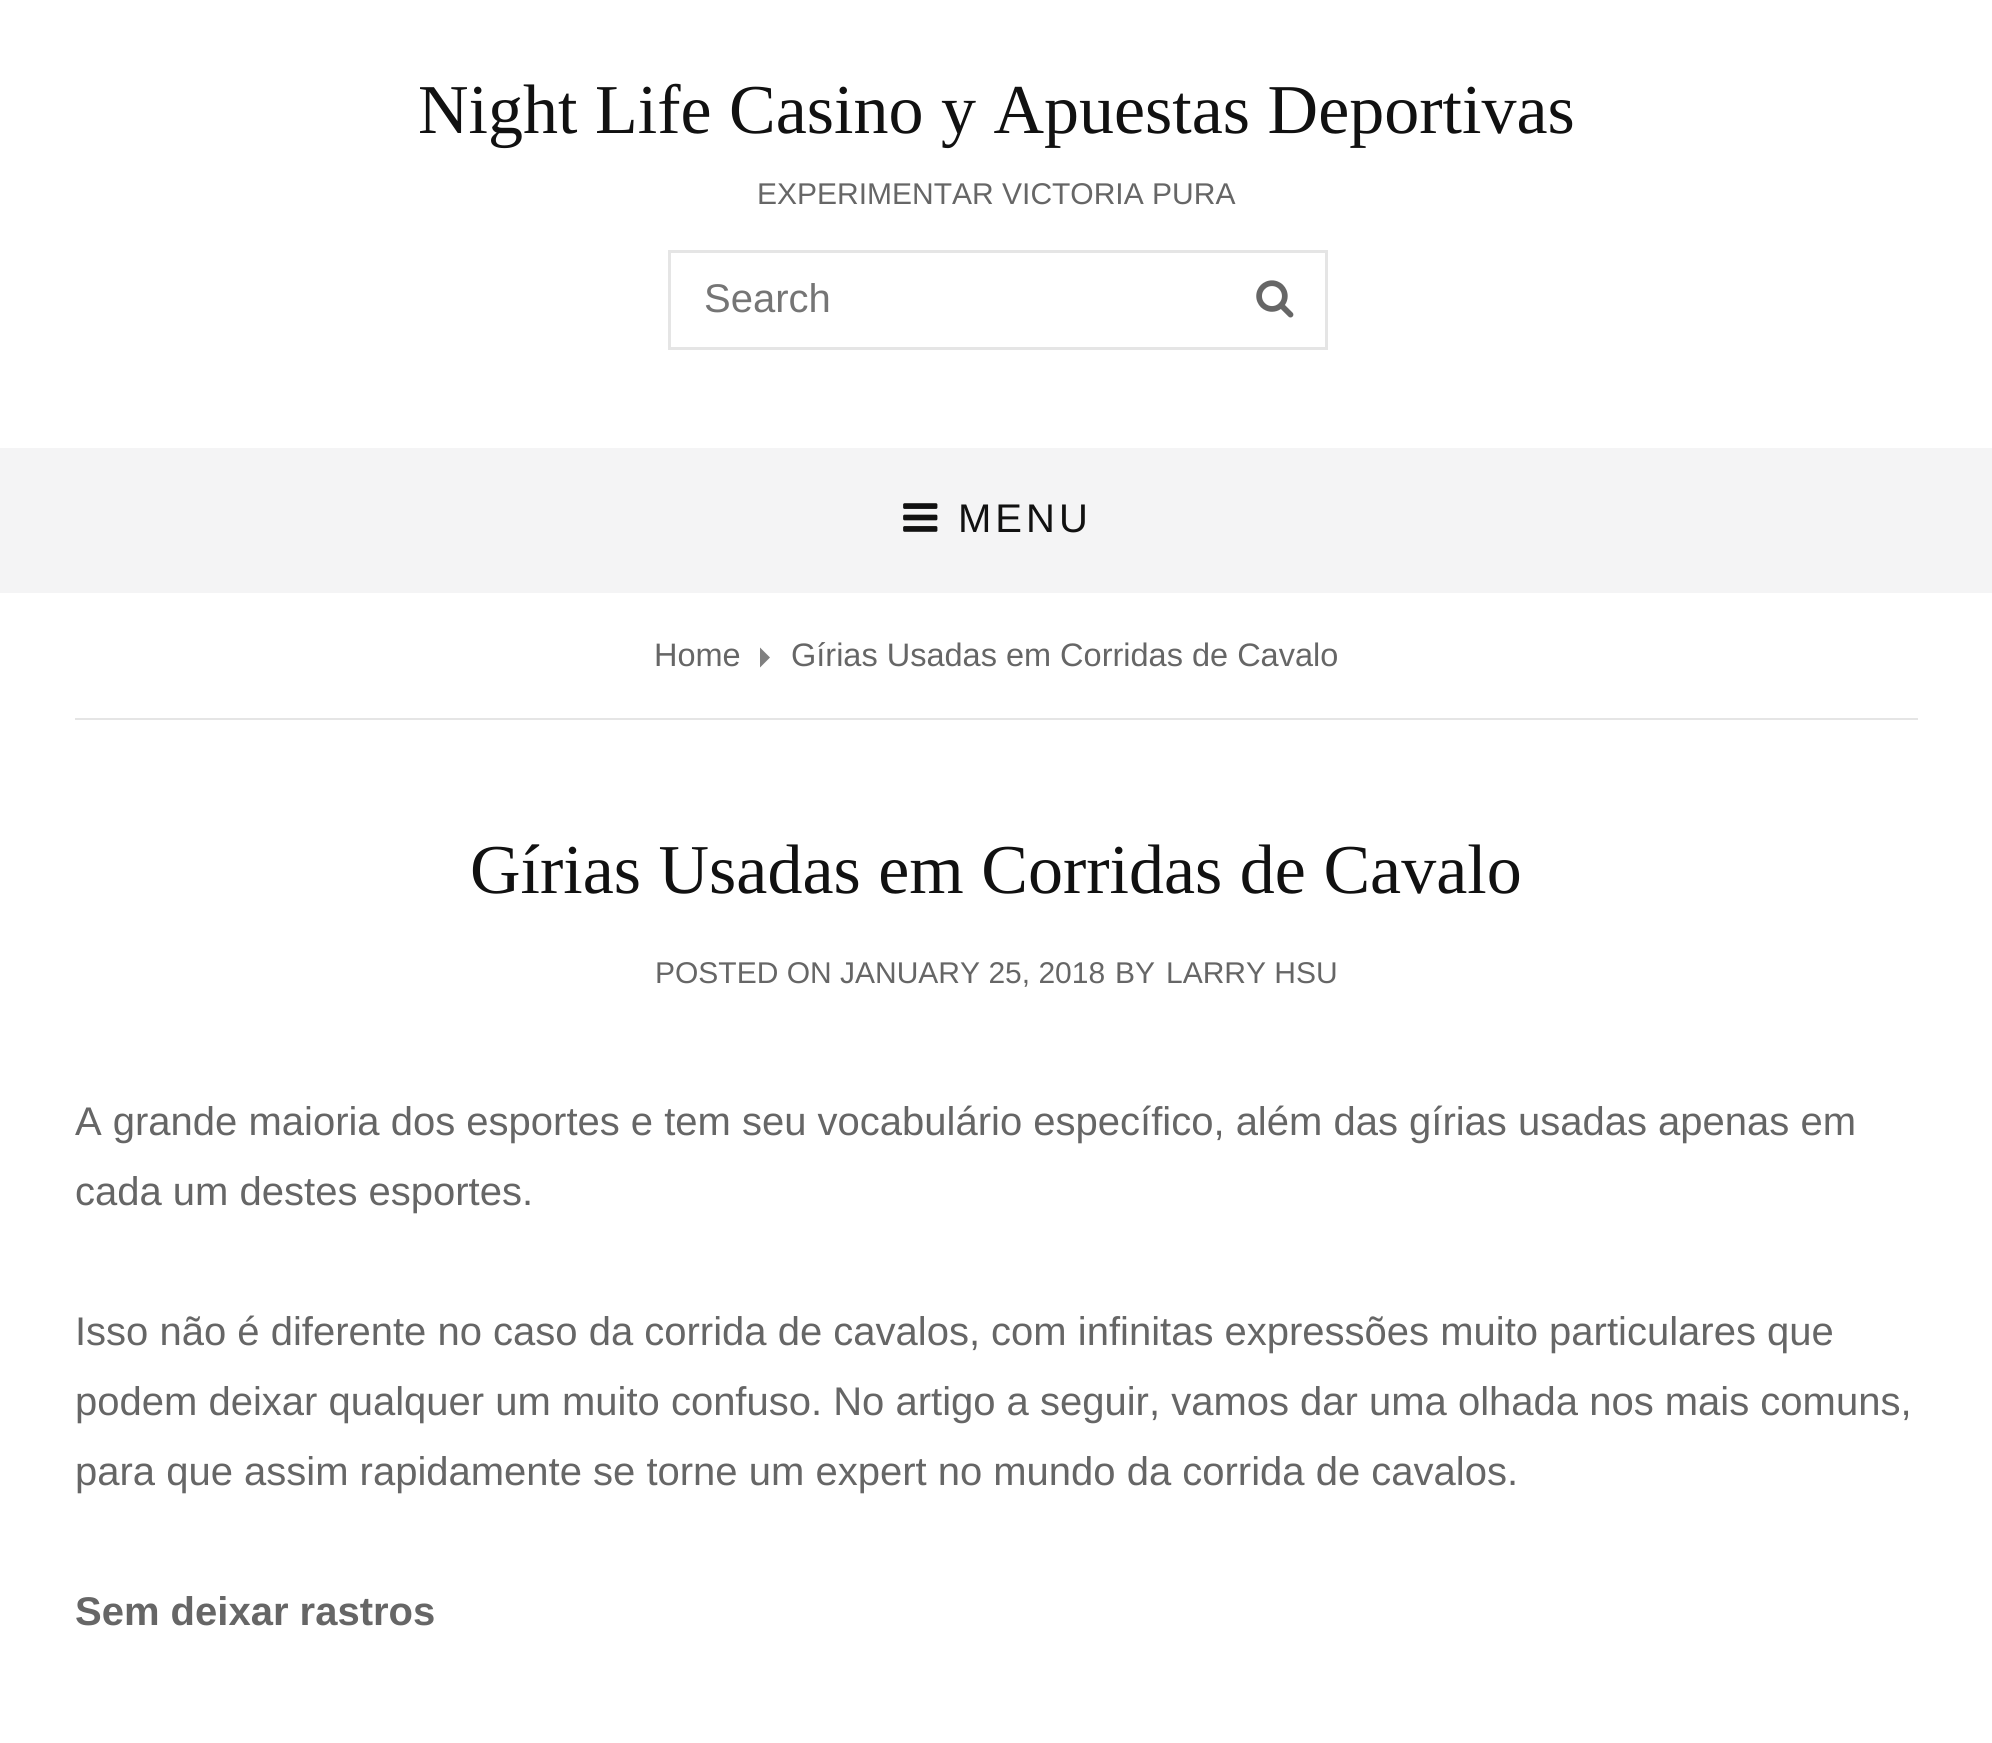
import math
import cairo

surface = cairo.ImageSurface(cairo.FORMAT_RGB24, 1992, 1743)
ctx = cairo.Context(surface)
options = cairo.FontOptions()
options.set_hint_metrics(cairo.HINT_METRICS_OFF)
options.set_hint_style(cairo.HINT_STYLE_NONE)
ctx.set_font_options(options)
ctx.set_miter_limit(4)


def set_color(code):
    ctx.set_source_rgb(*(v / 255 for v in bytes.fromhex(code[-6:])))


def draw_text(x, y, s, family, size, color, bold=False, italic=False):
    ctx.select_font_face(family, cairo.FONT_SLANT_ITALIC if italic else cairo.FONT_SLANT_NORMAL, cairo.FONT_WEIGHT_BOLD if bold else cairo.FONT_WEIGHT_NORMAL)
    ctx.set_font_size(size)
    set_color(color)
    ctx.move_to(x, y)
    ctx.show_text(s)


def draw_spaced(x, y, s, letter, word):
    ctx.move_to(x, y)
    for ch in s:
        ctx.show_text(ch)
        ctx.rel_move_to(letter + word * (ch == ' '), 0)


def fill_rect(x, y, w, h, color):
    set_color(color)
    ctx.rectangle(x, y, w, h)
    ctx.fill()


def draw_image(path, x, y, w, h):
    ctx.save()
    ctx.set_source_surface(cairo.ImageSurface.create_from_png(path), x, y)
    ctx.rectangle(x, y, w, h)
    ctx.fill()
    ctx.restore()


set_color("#ffffff")
ctx.paint()
draw_text(418, 133, "Night Life Casino y Apuestas Deportivas", "Liberation Serif", 70, "#111111")
draw_text(757, 204, "EXPERIMENTAR VICTORIA PURA", "Liberation Sans", 30, "#666666")
ctx.rectangle(669.5, 251.5, 657, 97)
set_color("#e5e5e5")
ctx.set_line_width(3)
ctx.stroke()
draw_text(704, 312, "Search", "Liberation Sans", 40, "#757575")
draw_image("assets/img1.png", 1256, 280, 38, 38)
fill_rect(0, 448, 1992, 145, "#f4f4f5")
draw_image("assets/img2.png", 903, 503, 35, 29)
set_color("#111111")
draw_spaced(958, 532, "MENU", 4, 0)
draw_text(654, 666, "Home", "Liberation Sans", 32.5, "#666666")
set_color("#808080")
ctx.new_path()
ctx.move_to(760, 667.5)
ctx.line_to(760, 647.5)
ctx.line_to(770, 657.5)
ctx.close_path()
ctx.fill()
draw_text(791, 666, "Gírias Usadas em Corridas de Cavalo", "Liberation Sans", 32.5, "#666666")
fill_rect(75, 718, 1843, 2, "#e5e5e5")
draw_text(470, 893, "Gírias Usadas em Corridas de Cavalo", "Liberation Serif", 70, "#111111")
draw_text(655, 983, "POSTED ON JANUARY 25, 2018", "Liberation Sans", 30, "#666666")
draw_text(1115, 983, "BY", "Liberation Sans", 30, "#666666")
draw_text(1166, 983, "LARRY HSU", "Liberation Sans", 30, "#666666")
draw_text(75, 1135, "A grande maioria dos esportes e tem seu vocabulário específico, além das gírias usadas apenas em", "Liberation Sans", 40, "#666666")
draw_text(75, 1205, "cada um destes esportes.", "Liberation Sans", 40, "#666666")
draw_text(75, 1345, "Isso não é diferente no caso da corrida de cavalos, com infinitas expressões muito particulares que", "Liberation Sans", 40, "#666666")
draw_text(75, 1415, "podem deixar qualquer um muito confuso. No artigo a seguir, vamos dar uma olhada nos mais comuns,", "Liberation Sans", 40, "#666666")
draw_text(75, 1485, "para que assim rapidamente se torne um expert no mundo da corrida de cavalos.", "Liberation Sans", 40, "#666666")
draw_text(75, 1625, "Sem deixar rastros", "Liberation Sans", 40, "#666666", bold=True)
surface.write_to_png("output.png")
